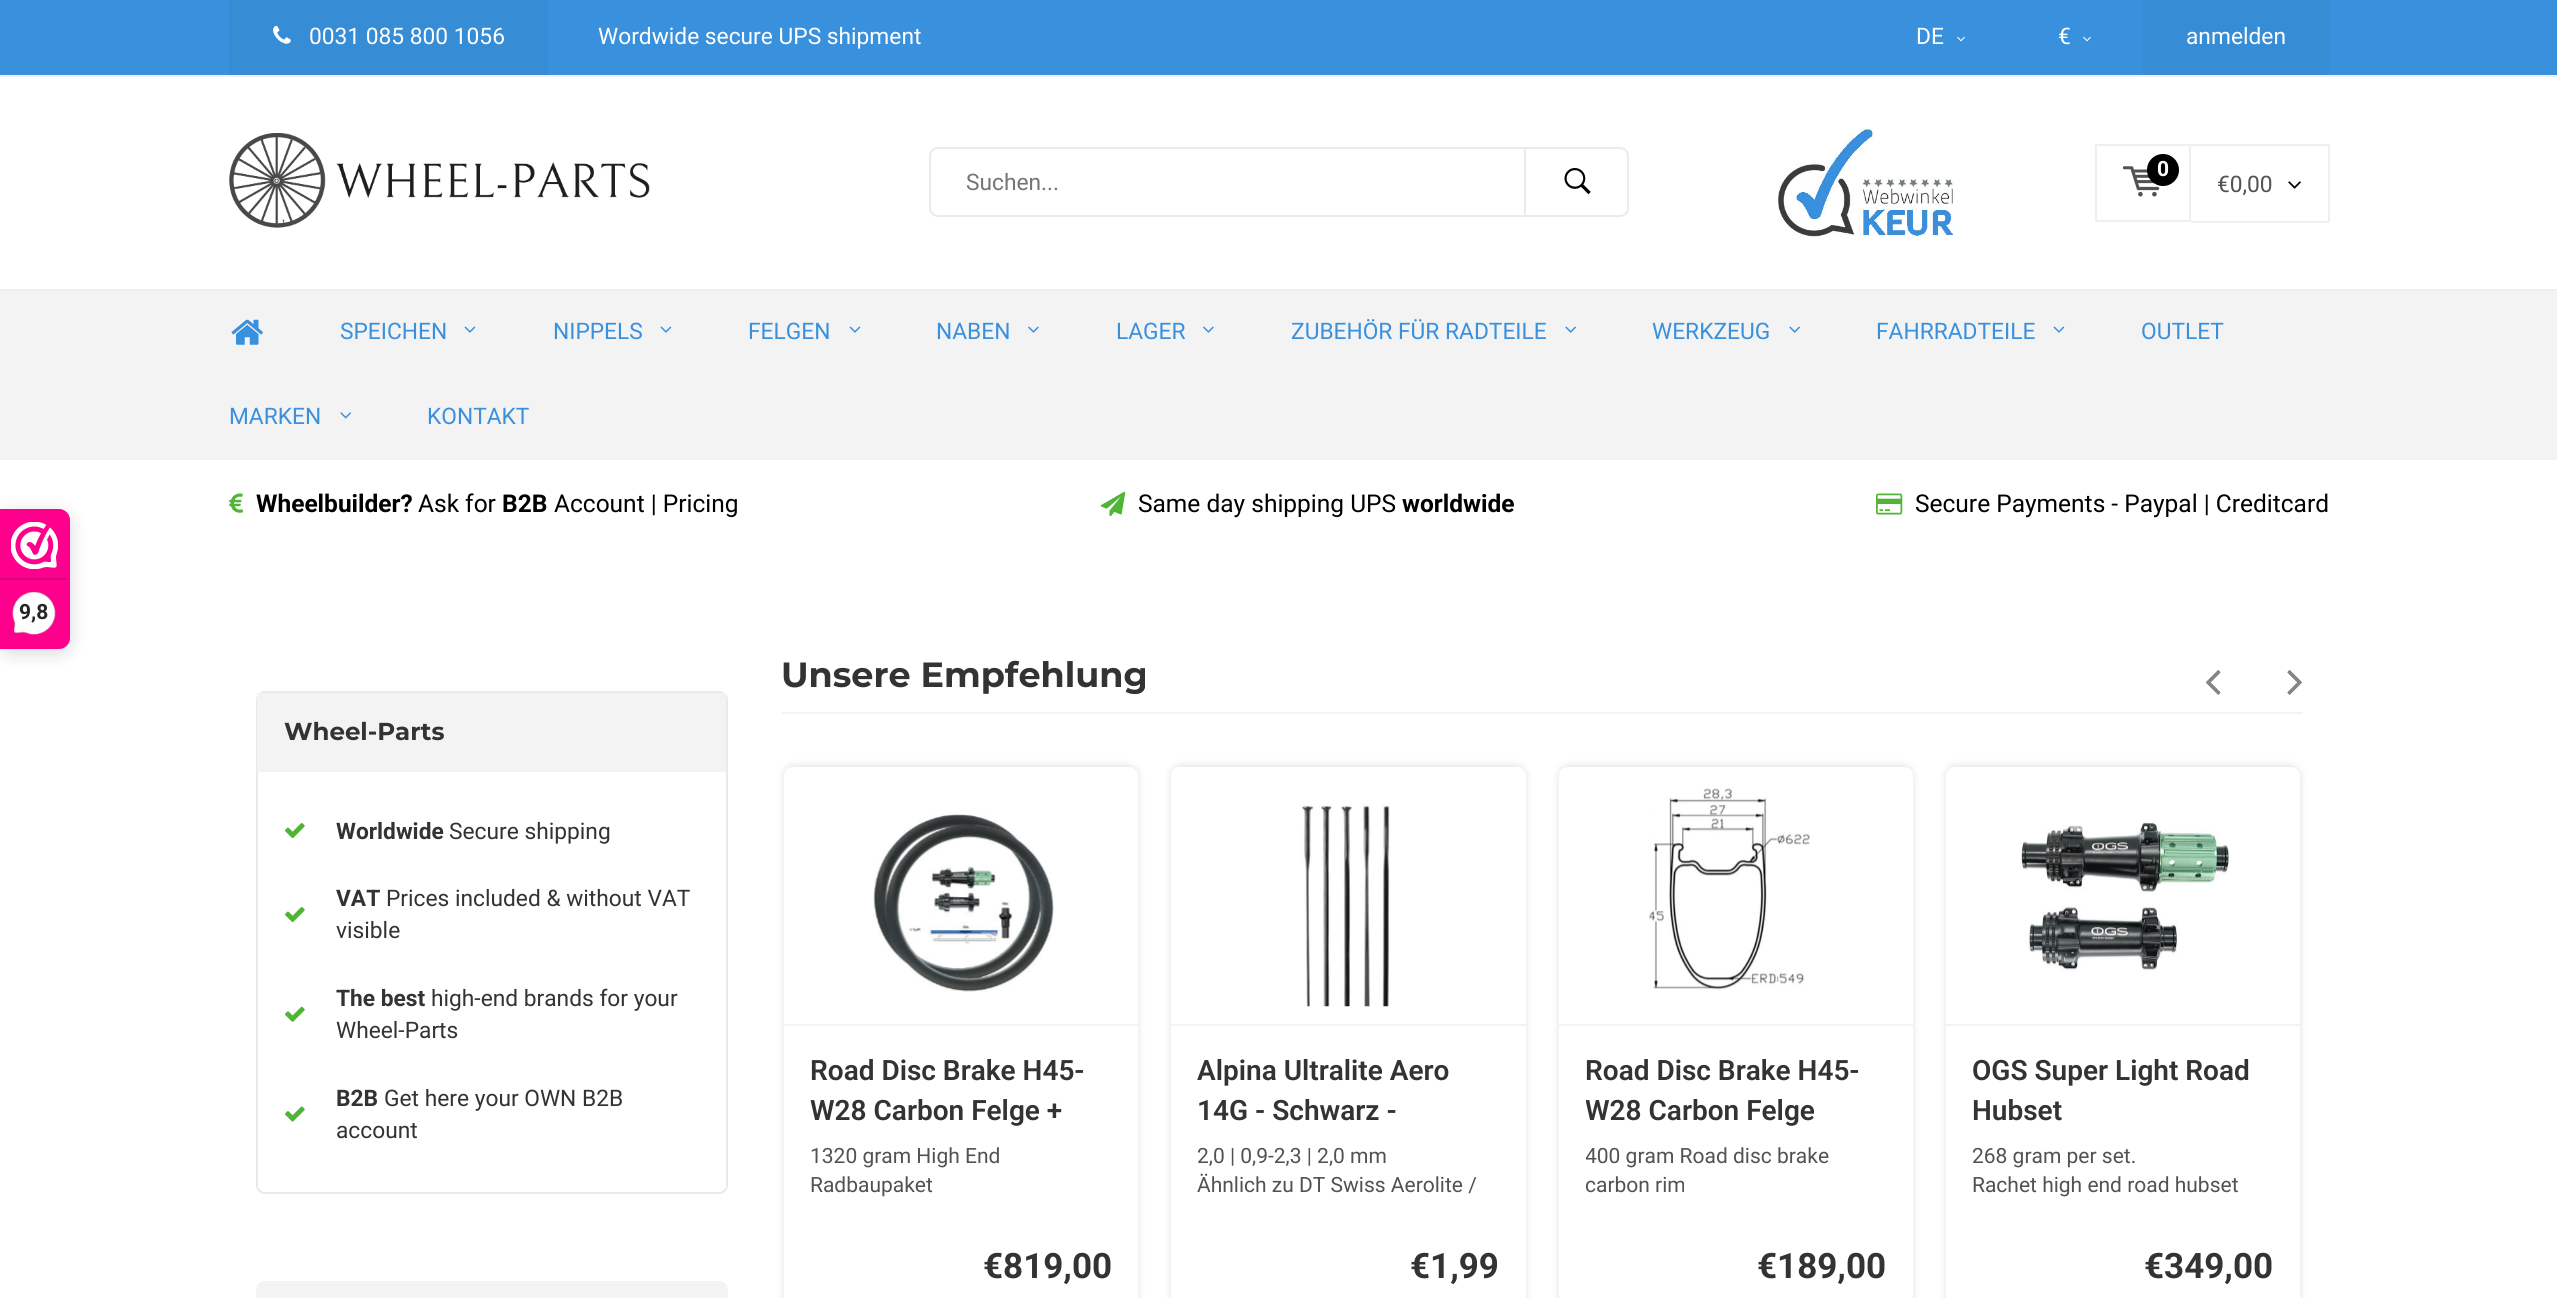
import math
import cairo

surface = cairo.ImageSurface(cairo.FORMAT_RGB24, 2557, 1298)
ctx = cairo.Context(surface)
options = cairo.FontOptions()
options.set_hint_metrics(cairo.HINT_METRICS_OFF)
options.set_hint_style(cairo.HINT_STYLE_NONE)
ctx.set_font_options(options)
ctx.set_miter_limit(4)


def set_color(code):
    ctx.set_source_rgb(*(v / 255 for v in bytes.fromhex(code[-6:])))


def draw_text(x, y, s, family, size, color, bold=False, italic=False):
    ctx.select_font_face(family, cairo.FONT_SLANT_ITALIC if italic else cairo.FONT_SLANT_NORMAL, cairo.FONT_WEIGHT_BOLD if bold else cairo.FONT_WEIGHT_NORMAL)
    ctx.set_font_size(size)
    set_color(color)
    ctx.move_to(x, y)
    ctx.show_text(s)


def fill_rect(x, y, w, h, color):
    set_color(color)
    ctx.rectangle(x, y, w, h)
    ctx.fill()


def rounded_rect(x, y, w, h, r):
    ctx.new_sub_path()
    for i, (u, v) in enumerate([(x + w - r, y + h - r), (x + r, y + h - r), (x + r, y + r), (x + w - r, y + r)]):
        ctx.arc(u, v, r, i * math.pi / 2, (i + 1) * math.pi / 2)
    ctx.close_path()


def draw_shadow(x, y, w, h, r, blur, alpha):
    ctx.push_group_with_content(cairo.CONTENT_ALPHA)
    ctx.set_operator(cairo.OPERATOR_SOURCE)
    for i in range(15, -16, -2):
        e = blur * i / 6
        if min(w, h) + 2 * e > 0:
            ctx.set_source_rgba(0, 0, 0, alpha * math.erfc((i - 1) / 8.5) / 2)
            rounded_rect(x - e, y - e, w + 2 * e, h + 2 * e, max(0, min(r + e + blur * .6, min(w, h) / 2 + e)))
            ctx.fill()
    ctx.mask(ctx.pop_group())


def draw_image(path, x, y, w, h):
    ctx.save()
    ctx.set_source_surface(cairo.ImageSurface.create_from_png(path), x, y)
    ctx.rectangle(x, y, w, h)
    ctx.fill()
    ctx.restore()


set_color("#ffffff")
ctx.paint()
set_color("#000000")
draw_shadow(0, 513, 70, 140, 11, 9, 0.15)
set_color("#fe008c")
ctx.new_path()
ctx.move_to(0, 509)
ctx.line_to(59, 509)
ctx.curve_to(65, 509, 70, 514, 70, 520)
ctx.line_to(70, 638)
ctx.curve_to(70, 644, 65, 649, 59, 649)
ctx.line_to(0, 649)
ctx.close_path()
ctx.fill()
draw_image("assets/img1.png", 11, 522, 47, 47)
fill_rect(0, 578, 68, 2, "#d80077")
draw_image("assets/img2.png", 12, 591, 44, 45)
draw_text(19, 619, "9,8", "Roboto", 21, "#272626", bold=True)
fill_rect(0, 0, 2557, 75, "#3990dd")
fill_rect(229, 0, 319, 75, "#378cd6")
draw_image("assets/img3.png", 273, 25, 18, 19)
draw_text(309, 44, "0031 085 800 1056", "Roboto", 22.75, "#ffffff")
draw_text(598, 44, "Wordwide secure UPS shipment", "Roboto", 22.75, "#ffffff")
draw_text(1916, 44, "DE", "Roboto", 22.75, "#ffffff")
draw_image("assets/img4.png", 1957, 36, 8, 6)
draw_text(2058, 44, "€", "Roboto", 22.75, "#ffffff")
draw_image("assets/img4.png", 2083, 36, 8, 6)
fill_rect(2142, 0, 187, 75, "#378cd6")
draw_text(2186, 44, "anmelden", "Roboto", 22.75, "#ffffff")
fill_rect(0, 75, 2557, 2, "#efefef")
fill_rect(0, 289, 2557, 2, "#efefef")
draw_image("assets/img5.png", 229, 133, 421, 95)
rounded_rect(930, 148, 698, 68, 8)
set_color("#ebebeb")
ctx.stroke()
draw_text(966, 190, "Suchen...", "Roboto", 22.75, "#757575")
fill_rect(1524, 147, 2, 70, "#ebebeb")
draw_image("assets/img6.png", 1564, 168, 27, 27)
draw_image("assets/img7.png", 1778, 129, 175, 108)
ctx.rectangle(2096, 145, 94, 76)
set_color("#efefef")
ctx.stroke()
draw_image("assets/img8.png", 2123, 166, 37, 31)
set_color("#000000")
ctx.arc(2163, 170, 16, 0, 2 * math.pi)
ctx.fill()
draw_text(2157, 176, "0", "Roboto", 21, "#ffffff", bold=True)
fill_rect(2191, 144, 138, 2, "#efefef")
fill_rect(2328, 144, 2, 78, "#efefef")
fill_rect(2191, 221, 138, 2, "#efefef")
draw_text(2217, 192, "€0,00", "Roboto", 22.75, "#525252")
draw_image("assets/img9.png", 2288, 181, 13, 8)
fill_rect(0, 291, 2557, 169, "#f3f3f3")
draw_image("assets/img10.png", 231, 319, 32, 26)
draw_text(340, 339, "SPEICHEN", "Roboto", 22.75, "#3990dd")
draw_image("assets/img11.png", 464, 326, 12, 7)
draw_text(553, 339, "NIPPELS", "Roboto", 22.75, "#3990dd")
draw_image("assets/img11.png", 660, 326, 12, 7)
draw_text(748, 339, "FELGEN", "Roboto", 22.75, "#3990dd")
draw_image("assets/img11.png", 849, 326, 12, 7)
draw_text(936, 339, "NABEN", "Roboto", 22.75, "#3990dd")
draw_image("assets/img12.png", 1028, 326, 11, 7)
draw_text(1116, 339, "LAGER", "Roboto", 22.75, "#3990dd")
draw_image("assets/img12.png", 1203, 326, 11, 7)
draw_text(1291, 339, "ZUBEHÖR FÜR RADTEILE", "Roboto", 22.75, "#3990dd")
draw_image("assets/img13.png", 1565, 326, 11, 7)
draw_text(1652, 339, "WERKZEUG", "Roboto", 22.75, "#3990dd")
draw_image("assets/img13.png", 1789, 326, 11, 7)
draw_text(1876, 339, "FAHRRADTEILE", "Roboto", 22.75, "#3990dd")
draw_image("assets/img11.png", 2053, 326, 12, 7)
draw_text(2141, 339, "OUTLET", "Roboto", 22.75, "#3990dd")
draw_text(229, 424, "MARKEN", "Roboto", 22.75, "#3990dd")
draw_image("assets/img14.png", 340, 412, 11, 7)
draw_text(427, 424, "KONTAKT", "Roboto", 22.75, "#3990dd")
draw_image("assets/img15.png", 229, 493, 15, 20)
draw_text(256, 512, "Wheelbuilder?", "Roboto", 24.5, "#000000", bold=True)
draw_text(418, 512, "Ask for", "Roboto", 24.5, "#000000")
draw_text(502, 512, "B2B", "Roboto", 24.5, "#000000", bold=True)
draw_text(554, 512, "Account | Pricing", "Roboto", 24.5, "#000000")
draw_image("assets/img16.png", 1100, 491, 26, 26)
draw_text(1138, 512, "Same day shipping UPS", "Roboto", 24.5, "#000000")
draw_text(1402, 512, "worldwide", "Roboto", 24.5, "#000000", bold=True)
draw_image("assets/img17.png", 1876, 493, 27, 22)
draw_text(1915, 512, "Secure Payments - Paypal | Creditcard", "Roboto", 24.5, "#000000")
rounded_rect(257, 692, 470, 501, 8)
set_color("#e9eaea")
ctx.stroke()
fill_rect(257, 693, 469, 79, "#f3f3f3")
draw_text(284, 740, "Wheel-Parts", "Montserrat", 24.5, "#333333", bold=True)
draw_image("assets/img18.png", 285, 823, 20, 16)
draw_text(336, 839, "Worldwide", "Roboto", 22.75, "#333333", bold=True)
draw_text(449, 839, "Secure shipping", "Roboto", 22.75, "#333333")
draw_image("assets/img18.png", 285, 907, 20, 16)
draw_text(336, 906, "VAT", "Roboto", 22.75, "#333333", bold=True)
draw_text(386, 906, "Prices included & without VAT", "Roboto", 22.75, "#333333")
draw_text(336, 938, "visible", "Roboto", 22.75, "#333333")
draw_image("assets/img19.png", 285, 1006, 20, 16)
draw_text(336, 1006, "The best", "Roboto", 22.75, "#333333", bold=True)
draw_text(431, 1006, "high-end brands for your", "Roboto", 22.75, "#333333")
draw_text(336, 1038, "Wheel-Parts", "Roboto", 22.75, "#333333")
draw_image("assets/img20.png", 285, 1106, 20, 16)
draw_text(336, 1106, "B2B", "Roboto", 22.75, "#333333", bold=True)
draw_text(384, 1106, "Get here your OWN B2B", "Roboto", 22.75, "#333333")
draw_text(336, 1138, "account", "Roboto", 22.75, "#333333")
set_color("#f3f3f3")
rounded_rect(256, 1281, 472, 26, 9)
ctx.fill()
fill_rect(781, 712, 1522, 2, "#f3f3f3")
draw_text(781, 687, "Unsere Empfehlung", "Montserrat", 35, "#333333", bold=True)
draw_image("assets/img23.png", 2206, 670, 15, 25)
draw_image("assets/img21.png", 2206, 670, 15, 25)
draw_image("assets/img24.png", 2287, 670, 15, 25)
draw_image("assets/img22.png", 2287, 670, 15, 25)
set_color("#000000")
draw_shadow(786, 768, 350, 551, 7, 4.5, 0.2)
set_color("#ffffff")
ctx.new_path()
ctx.move_to(793, 767)
ctx.line_to(1129, 767)
ctx.curve_to(1134, 767, 1138, 771, 1138, 776)
ctx.line_to(1138, 1026)
ctx.line_to(784, 1026)
ctx.line_to(784, 776)
ctx.curve_to(784, 771, 788, 767, 793, 767)
ctx.close_path()
ctx.fill()
fill_rect(784, 1024, 354, 2, "#f3f3f3")
draw_image("assets/img25.png", 873, 814, 181, 178)
fill_rect(784, 1026, 354, 272, "#ffffff")
draw_text(810, 1080, "Road Disc Brake H45-", "Roboto SemiBold", 28, "#333333")
draw_text(810, 1120, "W28 Carbon Felge +", "Roboto SemiBold", 28, "#333333")
draw_text(810, 1163, "1320 gram High End", "Roboto", 21, "#525252")
draw_text(810, 1192, "Radbaupaket", "Roboto", 21, "#525252")
draw_text(983, 1278, "€819,00", "Roboto", 35, "#333333", bold=True)
ctx.save()
ctx.set_fill_rule(cairo.FILL_RULE_EVEN_ODD)
ctx.new_path()
ctx.move_to(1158, 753)
ctx.line_to(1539, 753)
ctx.line_to(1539, 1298)
ctx.line_to(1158, 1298)
ctx.close_path()
ctx.move_to(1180, 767)
ctx.line_to(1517, 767)
ctx.curve_to(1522, 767, 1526, 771, 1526, 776)
ctx.line_to(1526, 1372)
ctx.curve_to(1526, 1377, 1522, 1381, 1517, 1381)
ctx.line_to(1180, 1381)
ctx.curve_to(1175, 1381, 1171, 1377, 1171, 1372)
ctx.line_to(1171, 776)
ctx.curve_to(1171, 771, 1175, 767, 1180, 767)
ctx.close_path()
ctx.clip()
set_color("#000000")
draw_shadow(1173, 768, 351, 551, 7, 4.5, 0.2)
ctx.restore()
fill_rect(1171, 1024, 355, 2, "#f3f3f3")
draw_image("assets/img26.png", 1301, 804, 89, 203)
draw_text(1197, 1080, "Alpina Ultralite Aero", "Roboto SemiBold", 28, "#333333")
draw_text(1197, 1120, "14G - Schwarz -", "Roboto SemiBold", 28, "#333333")
draw_text(1197, 1163, "2,0 | 0,9-2,3 | 2,0 mm", "Roboto", 21, "#525252")
draw_text(1197, 1192, "Ähnlich zu DT Swiss Aerolite /", "Roboto", 21, "#525252")
draw_text(1410, 1278, "€1,99", "Roboto", 35, "#333333", bold=True)
set_color("#000000")
draw_shadow(1561, 768, 350, 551, 7, 4.5, 0.2)
set_color("#ffffff")
ctx.new_path()
ctx.move_to(1568, 767)
ctx.line_to(1904, 767)
ctx.curve_to(1909, 767, 1913, 771, 1913, 776)
ctx.line_to(1913, 1026)
ctx.line_to(1559, 1026)
ctx.line_to(1559, 776)
ctx.curve_to(1559, 771, 1563, 767, 1568, 767)
ctx.close_path()
ctx.fill()
fill_rect(1559, 1024, 354, 2, "#f3f3f3")
draw_image("assets/img27.png", 1649, 788, 161, 202)
fill_rect(1559, 1026, 354, 272, "#ffffff")
draw_text(1585, 1080, "Road Disc Brake H45-", "Roboto SemiBold", 28, "#333333")
ctx.save()
ctx.rectangle(1586, 1052, 301, 80)
ctx.clip()
draw_text(1585, 1120, "W28 Carbon Felge", "Roboto SemiBold", 28, "#333333")
ctx.restore()
ctx.save()
ctx.rectangle(1586, 1141, 301, 60)
ctx.clip()
draw_text(1585, 1163, "400 gram Road disc brake", "Roboto", 21, "#525252")
draw_text(1585, 1192, "carbon rim", "Roboto", 21, "#525252")
ctx.restore()
draw_text(1757, 1278, "€189,00", "Roboto", 35, "#333333", bold=True)
set_color("#000000")
draw_shadow(1948, 768, 350, 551, 7, 4.5, 0.2)
set_color("#ffffff")
ctx.new_path()
ctx.move_to(1955, 767)
ctx.line_to(2291, 767)
ctx.curve_to(2296, 767, 2300, 771, 2300, 776)
ctx.line_to(2300, 1026)
ctx.line_to(1946, 1026)
ctx.line_to(1946, 776)
ctx.curve_to(1946, 771, 1950, 767, 1955, 767)
ctx.close_path()
ctx.fill()
fill_rect(1946, 1024, 354, 2, "#f3f3f3")
draw_image("assets/img28.png", 2020, 821, 209, 151)
fill_rect(1946, 1026, 354, 272, "#ffffff")
draw_text(1972, 1080, "OGS Super Light Road", "Roboto SemiBold", 28, "#333333")
draw_text(1972, 1120, "Hubset", "Roboto SemiBold", 28, "#333333")
draw_text(1972, 1163, "268 gram per set.", "Roboto", 21, "#525252")
draw_text(1972, 1192, "Rachet high end road hubset", "Roboto", 21, "#525252")
draw_text(2144, 1278, "€349,00", "Roboto", 35, "#333333", bold=True)
surface.write_to_png("output.png")
